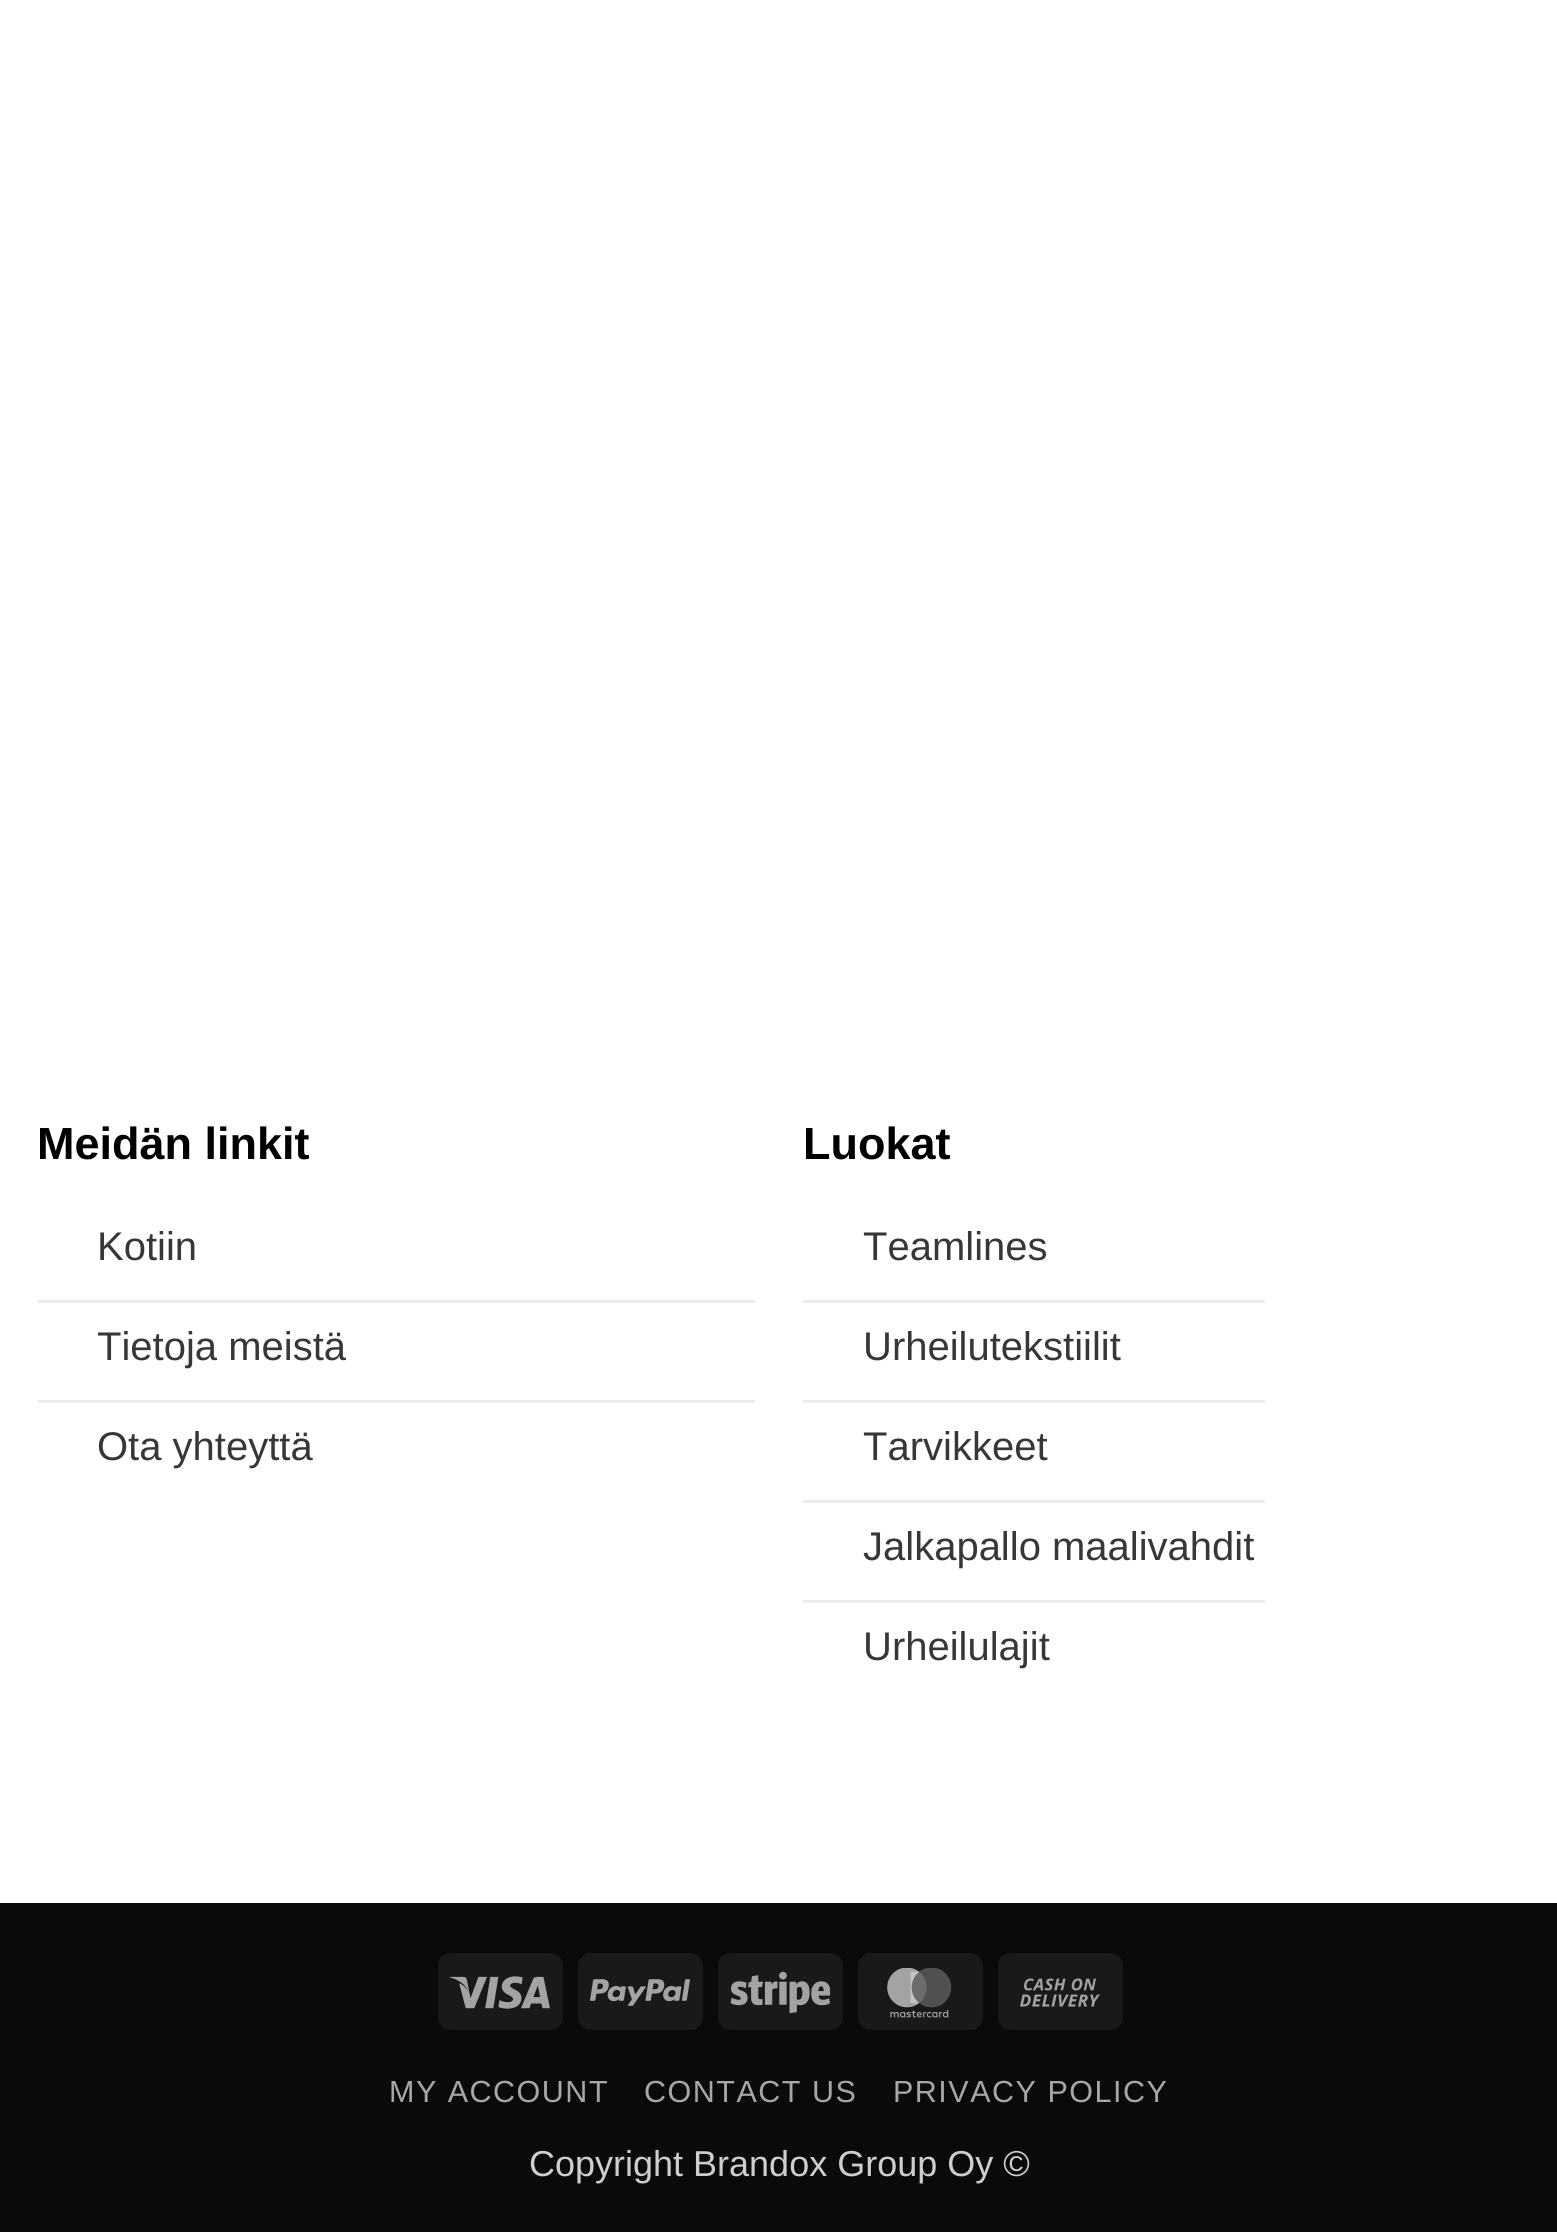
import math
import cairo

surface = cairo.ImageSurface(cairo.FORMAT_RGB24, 1557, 2232)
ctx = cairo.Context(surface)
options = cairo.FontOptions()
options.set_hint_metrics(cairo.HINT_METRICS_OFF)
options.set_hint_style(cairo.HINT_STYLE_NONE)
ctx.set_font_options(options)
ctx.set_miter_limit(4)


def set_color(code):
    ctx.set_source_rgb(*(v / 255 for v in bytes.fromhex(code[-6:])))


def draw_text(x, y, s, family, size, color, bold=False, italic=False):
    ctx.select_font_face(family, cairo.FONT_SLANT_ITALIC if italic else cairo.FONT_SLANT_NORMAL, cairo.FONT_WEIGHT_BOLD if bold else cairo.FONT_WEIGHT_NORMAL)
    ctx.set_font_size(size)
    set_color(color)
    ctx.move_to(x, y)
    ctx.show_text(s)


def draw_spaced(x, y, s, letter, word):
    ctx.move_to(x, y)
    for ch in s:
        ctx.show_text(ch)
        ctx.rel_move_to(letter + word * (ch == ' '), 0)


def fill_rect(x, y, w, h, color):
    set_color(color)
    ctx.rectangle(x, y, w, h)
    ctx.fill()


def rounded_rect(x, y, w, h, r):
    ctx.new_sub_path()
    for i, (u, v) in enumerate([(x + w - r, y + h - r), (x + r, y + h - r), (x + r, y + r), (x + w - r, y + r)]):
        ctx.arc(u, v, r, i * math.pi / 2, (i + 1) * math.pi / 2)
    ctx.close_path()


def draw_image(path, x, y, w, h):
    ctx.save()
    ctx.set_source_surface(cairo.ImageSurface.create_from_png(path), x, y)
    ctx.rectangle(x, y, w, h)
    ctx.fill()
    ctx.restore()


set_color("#ffffff")
ctx.paint()
draw_text(37, 1159, "Meidän linkit", "Liberation Sans", 45, "#000000", bold=True)
fill_rect(38, 1300, 717, 3, "#ececec")
draw_text(97, 1260, "Kotiin", "Liberation Sans", 40, "#383737")
fill_rect(38, 1400, 717, 3, "#ececec")
draw_text(97, 1360, "Tietoja meistä", "Liberation Sans", 40, "#383737")
draw_text(97, 1460, "Ota yhteyttä", "Liberation Sans", 40, "#383737")
draw_text(803, 1159, "Luokat", "Liberation Sans", 45, "#000000", bold=True)
fill_rect(803, 1300, 462, 3, "#ececec")
draw_text(863, 1260, "Teamlines", "Liberation Sans", 40, "#383737")
fill_rect(803, 1400, 462, 3, "#ececec")
draw_text(863, 1360, "Urheilutekstiilit", "Liberation Sans", 40, "#383737")
fill_rect(803, 1500, 462, 3, "#ececec")
draw_text(863, 1460, "Tarvikkeet", "Liberation Sans", 40, "#383737")
fill_rect(803, 1600, 462, 3, "#ececec")
draw_text(863, 1560, "Jalkapallo maalivahdit", "Liberation Sans", 40, "#383737")
draw_text(863, 1660, "Urheilulajit", "Liberation Sans", 40, "#383737")
fill_rect(0, 1903, 1557, 329, "#0a0a0a")
set_color("#191919")
rounded_rect(438, 1953, 125, 77, 13)
ctx.fill()
draw_image("assets/img1.png", 450, 1976, 100, 33)
rounded_rect(578, 1953, 125, 77, 13)
ctx.fill()
draw_image("assets/img2.png", 590, 1979, 100, 27)
rounded_rect(718, 1953, 125, 77, 13)
ctx.fill()
draw_image("assets/img3.png", 730, 1971, 100, 43)
rounded_rect(858, 1953, 125, 77, 13)
ctx.fill()
draw_image("assets/img4.png", 887, 1968, 65, 50)
rounded_rect(998, 1953, 125, 77, 13)
ctx.fill()
draw_image("assets/img5.png", 1020, 1978, 80, 29)
ctx.set_font_size(30.5)
set_color("#a7a7a7")
draw_spaced(389, 2102, "MY ACCOUNT", 1.5, 0)
draw_spaced(644, 2102, "CONTACT US", 1.5, 0)
draw_spaced(893, 2102, "PRIVACY POLICY", 1.5, 0)
draw_text(529, 2176, "Copyright Brandox Group Oy ©", "Liberation Sans", 36, "#cecece")
surface.write_to_png("output.png")
